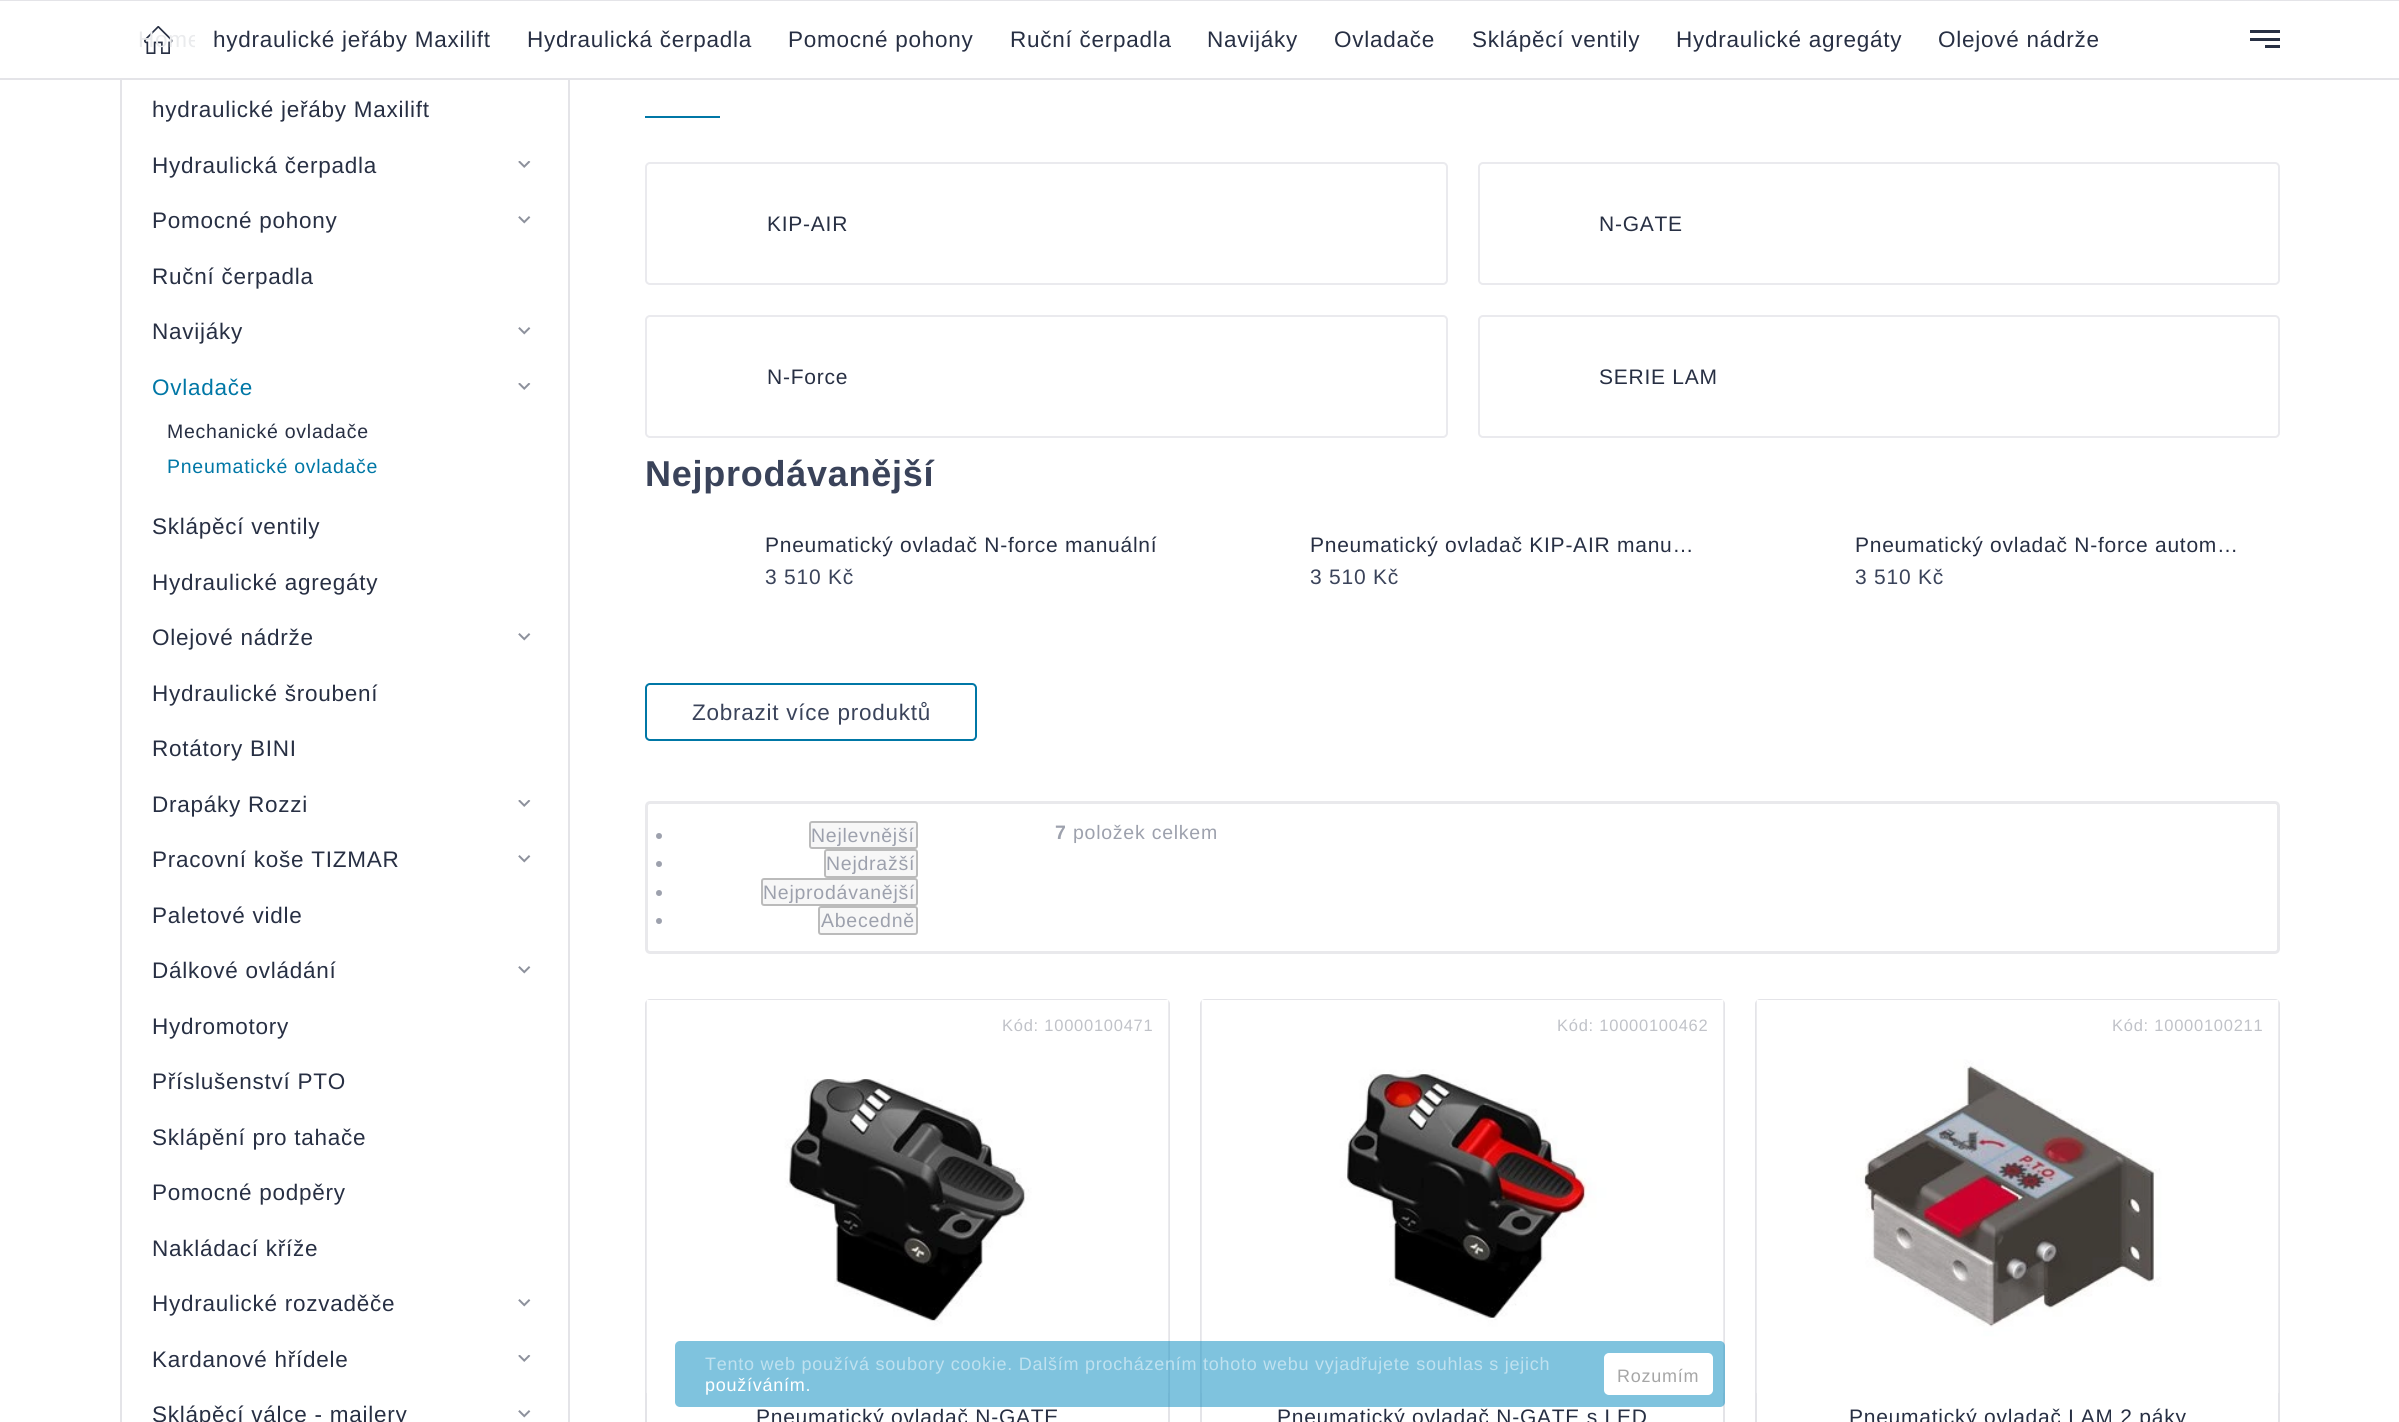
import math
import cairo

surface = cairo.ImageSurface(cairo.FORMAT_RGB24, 2399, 1422)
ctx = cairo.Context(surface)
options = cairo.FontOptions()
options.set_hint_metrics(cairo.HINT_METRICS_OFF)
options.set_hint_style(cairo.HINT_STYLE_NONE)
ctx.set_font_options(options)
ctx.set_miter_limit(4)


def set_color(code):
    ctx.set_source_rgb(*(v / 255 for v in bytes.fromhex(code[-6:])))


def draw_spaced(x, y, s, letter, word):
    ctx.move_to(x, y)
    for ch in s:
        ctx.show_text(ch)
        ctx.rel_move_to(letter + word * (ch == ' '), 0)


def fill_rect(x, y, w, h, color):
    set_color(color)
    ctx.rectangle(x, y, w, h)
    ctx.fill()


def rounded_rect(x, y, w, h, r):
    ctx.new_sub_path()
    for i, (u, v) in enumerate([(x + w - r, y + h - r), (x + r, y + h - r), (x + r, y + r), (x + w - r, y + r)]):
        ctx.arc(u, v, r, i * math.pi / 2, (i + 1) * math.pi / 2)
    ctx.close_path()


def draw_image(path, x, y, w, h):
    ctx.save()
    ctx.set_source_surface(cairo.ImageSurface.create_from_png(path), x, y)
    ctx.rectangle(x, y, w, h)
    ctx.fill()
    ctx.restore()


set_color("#ffffff")
ctx.paint()
ctx.rectangle(121, 66, 448, 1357)
set_color("#e4e4e8")
ctx.stroke()
fill_rect(120, 65, 450, 13, "#ffffff")
fill_rect(0, 78, 2399, 2, "#e4e4e8")
fill_rect(0, 0, 2399, 1, "#e4e4e8")
draw_image("assets/img1.png", 144, 26, 29, 28)
ctx.save()
ctx.rectangle(120, 0, 75, 78)
ctx.clip()
ctx.select_font_face("Liberation Sans")
ctx.set_font_size(22.5)
set_color("#eaebed")
draw_spaced(138, 47, "Home", 0.75, 0)
ctx.restore()
ctx.select_font_face("Liberation Sans")
ctx.set_font_size(22.5)
set_color("#272f43")
draw_spaced(213, 47, "hydraulické jeřáby Maxilift", 0.75, 0)
draw_spaced(527, 47, "Hydraulická čerpadla", 0.75, 0)
draw_spaced(788, 47, "Pomocné pohony", 0.75, 0)
draw_spaced(1010, 47, "Ruční čerpadla", 0.75, 0)
draw_spaced(1207, 47, "Navijáky", 0.75, 0)
draw_spaced(1334, 47, "Ovladače", 0.75, 0)
draw_spaced(1472, 47, "Sklápěcí ventily", 0.75, 0)
draw_spaced(1676, 47, "Hydraulické agregáty", 0.75, 0)
draw_spaced(1938, 47, "Olejové nádrže", 0.75, 0)
fill_rect(2250, 30, 30, 3, "#272f43")
fill_rect(2250, 38, 30, 3, "#272f43")
fill_rect(2265, 45, 15, 3, "#272f43")
draw_spaced(152, 117, "hydraulické jeřáby Maxilift", 0.75, 0)
draw_spaced(152, 173, "Hydraulická čerpadla", 0.75, 0)
draw_image("assets/img2.png", 518, 161, 13, 7)
draw_spaced(152, 228, "Pomocné pohony", 0.75, 0)
draw_image("assets/img3.png", 518, 216, 13, 8)
draw_spaced(152, 284, "Ruční čerpadla", 0.75, 0)
draw_spaced(152, 339, "Navijáky", 0.75, 0)
draw_image("assets/img3.png", 518, 327, 13, 8)
set_color("#0077a6")
draw_spaced(152, 395, "Ovladače", 0.75, 0)
draw_image("assets/img2.png", 518, 383, 13, 7)
ctx.set_font_size(19.5)
set_color("#272f43")
draw_spaced(167, 438, "Mechanické ovladače", 0.75, 0)
set_color("#0077a6")
draw_spaced(167, 473, "Pneumatické ovladače", 0.75, 0)
ctx.set_font_size(22.5)
set_color("#272f43")
draw_spaced(152, 534, "Sklápěcí ventily", 0.75, 0)
draw_spaced(152, 590, "Hydraulické agregáty", 0.75, 0)
draw_spaced(152, 645, "Olejové nádrže", 0.75, 0)
draw_image("assets/img3.png", 518, 633, 13, 8)
draw_spaced(152, 701, "Hydraulické šroubení", 0.75, 0)
draw_spaced(152, 756, "Rotátory BINI", 0.75, 0)
draw_spaced(152, 812, "Drapáky Rozzi", 0.75, 0)
draw_image("assets/img2.png", 518, 800, 13, 7)
draw_spaced(152, 867, "Pracovní koše TIZMAR", 0.75, 0)
draw_image("assets/img3.png", 518, 855, 13, 8)
draw_spaced(152, 923, "Paletové vidle", 0.75, 0)
draw_spaced(152, 978, "Dálkové ovládání", 0.75, 0)
draw_image("assets/img3.png", 518, 966, 13, 8)
draw_spaced(152, 1034, "Hydromotory", 0.75, 0)
draw_spaced(152, 1089, "Příslušenství PTO", 0.75, 0)
draw_spaced(152, 1145, "Sklápění pro tahače", 0.75, 0)
draw_spaced(152, 1200, "Pomocné podpěry", 0.75, 0)
draw_spaced(152, 1256, "Nakládací kříže", 0.75, 0)
draw_spaced(152, 1311, "Hydraulické rozvaděče", 0.75, 0)
draw_image("assets/img3.png", 518, 1299, 13, 8)
draw_spaced(152, 1367, "Kardanové hřídele", 0.75, 0)
draw_image("assets/img2.png", 518, 1355, 13, 7)
draw_spaced(152, 1422, "Sklápěcí válce - mailery", 0.75, 0)
draw_image("assets/img3.png", 518, 1410, 13, 8)
fill_rect(645, 116, 75, 2, "#0077a6")
rounded_rect(646, 163, 801, 121, 4)
set_color("#eaeaee")
ctx.stroke()
ctx.set_font_size(21)
set_color("#272f43")
draw_spaced(767, 231, "KIP-AIR", 0.75, 0)
rounded_rect(1479, 163, 800, 121, 4)
set_color("#eaeaee")
ctx.stroke()
set_color("#272f43")
draw_spaced(1599, 231, "N-GATE", 0.75, 0)
rounded_rect(646, 316, 801, 121, 4)
set_color("#eaeaee")
ctx.stroke()
set_color("#272f43")
draw_spaced(767, 384, "N-Force", 0.75, 0)
rounded_rect(1479, 316, 800, 121, 4)
set_color("#eaeaee")
ctx.stroke()
set_color("#272f43")
draw_spaced(1599, 384, "SERIE LAM", 0.75, 0)
ctx.select_font_face("Liberation Sans", cairo.FONT_SLANT_NORMAL, cairo.FONT_WEIGHT_BOLD)
ctx.set_font_size(36)
set_color("#3a435a")
draw_spaced(645, 486, "Nejprodávanější", 0.75, 0)
ctx.select_font_face("Liberation Sans")
ctx.set_font_size(21)
set_color("#272f43")
draw_spaced(765, 552, "Pneumatický ovladač N-force manuální", 0.75, 0)
set_color("#3a435a")
draw_spaced(765, 584, "3 510 Kč", 0.75, 0)
set_color("#272f43")
draw_spaced(1310, 552, "Pneumatický ovladač KIP-AIR manu…", 0.75, 0)
set_color("#3a435a")
draw_spaced(1310, 584, "3 510 Kč", 0.75, 0)
set_color("#272f43")
draw_spaced(1855, 552, "Pneumatický ovladač N-force autom…", 0.75, 0)
set_color("#3a435a")
draw_spaced(1855, 584, "3 510 Kč", 0.75, 0)
rounded_rect(646, 684, 330, 56, 4)
set_color("#0077a6")
ctx.stroke()
ctx.set_font_size(22.5)
set_color("#3a435a")
draw_spaced(692, 720, "Zobrazit více produktů", 0.75, 0)
rounded_rect(646.5, 802.5, 1632, 150, 3.5)
set_color("#e9e9ec")
ctx.set_line_width(3)
ctx.stroke()
set_color("#9da1ad")
ctx.arc(659, 836, 3, 0, 2 * math.pi)
ctx.fill()
set_color("#f7f7f7")
rounded_rect(810, 822, 107, 26, 2)
ctx.fill_preserve()
set_color("#bbbbbb")
ctx.set_line_width(2)
ctx.stroke()
ctx.set_font_size(19.5)
set_color("#9da1ad")
draw_spaced(811, 842, "Nejlevnější", 0.75, 0)
ctx.new_path()
ctx.arc(659, 864, 3, 0, 2 * math.pi)
ctx.fill()
set_color("#f7f7f7")
rounded_rect(825, 850, 92, 27, 2)
ctx.fill_preserve()
set_color("#bbbbbb")
ctx.stroke()
set_color("#9da1ad")
draw_spaced(826, 870, "Nejdražší", 0.75, 0)
ctx.new_path()
ctx.arc(659, 893, 3, 0, 2 * math.pi)
ctx.fill()
set_color("#f7f7f7")
rounded_rect(762, 879, 155, 26, 2)
ctx.fill_preserve()
set_color("#bbbbbb")
ctx.stroke()
set_color("#9da1ad")
draw_spaced(763, 899, "Nejprodávanější", 0.75, 0)
ctx.new_path()
ctx.arc(659, 921, 3, 0, 2 * math.pi)
ctx.fill()
set_color("#f7f7f7")
rounded_rect(819, 907, 98, 27, 2)
ctx.fill_preserve()
set_color("#bbbbbb")
ctx.stroke()
set_color("#9da1ad")
draw_spaced(821, 927, "Abecedně", 0.75, 0)
ctx.select_font_face("Liberation Sans", cairo.FONT_SLANT_NORMAL, cairo.FONT_WEIGHT_BOLD)
draw_spaced(1055, 839, "7", 0.75, 0)
ctx.select_font_face("Liberation Sans")
draw_spaced(1073, 839, "položek celkem", 0.75, 0)
rounded_rect(646, 1000, 523, 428, 4)
set_color("#e4e4e8")
ctx.stroke()
draw_image("assets/img4.png", 646, 1000, 523, 393)
ctx.set_font_size(16.5)
set_color("#c0c2c8")
draw_spaced(1002, 1031, "Kód: 10000100471", 0.75, 0)
ctx.set_font_size(21)
set_color("#272f43")
draw_spaced(756, 1424, "Pneumatický ovladač N-GATE", 0.75, 0)
rounded_rect(1201, 1000, 523, 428, 4)
set_color("#e4e4e8")
ctx.stroke()
draw_image("assets/img5.png", 1201, 1000, 523, 393)
ctx.set_font_size(16.5)
set_color("#c0c2c8")
draw_spaced(1557, 1031, "Kód: 10000100462", 0.75, 0)
ctx.set_font_size(21)
set_color("#272f43")
draw_spaced(1277, 1424, "Pneumatický ovladač N-GATE s LED", 0.75, 0)
rounded_rect(1756, 1000, 523, 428, 4)
set_color("#e4e4e8")
ctx.stroke()
draw_image("assets/img6.png", 1756, 1000, 523, 393)
ctx.set_font_size(16.5)
set_color("#c0c2c8")
draw_spaced(2112, 1031, "Kód: 10000100211", 0.75, 0)
ctx.set_font_size(21)
set_color("#272f43")
draw_spaced(1849, 1424, "Pneumatický ovladač LAM 2 páky", 0.75, 0)
ctx.set_source_rgba(0, 0.533, 0.749, 0.5)
rounded_rect(675, 1341, 1050, 66, 5)
ctx.fill()
ctx.set_font_size(18)
set_color("#bfe1ef")
draw_spaced(705, 1370, "Tento web používá soubory cookie. Dalším procházením tohoto webu vyjadřujete souhlas s jejich", 0.75, 0)
set_color("#ffffff")
rounded_rect(1605, 1354, 107, 40, 4)
ctx.fill_preserve()
ctx.stroke()
set_color("#a6a6a6")
draw_spaced(1617, 1382, "Rozumím", 0.75, 0)
set_color("#ffffff")
draw_spaced(705, 1391, "používáním.", 0.75, 0)
surface.write_to_png("output.png")
